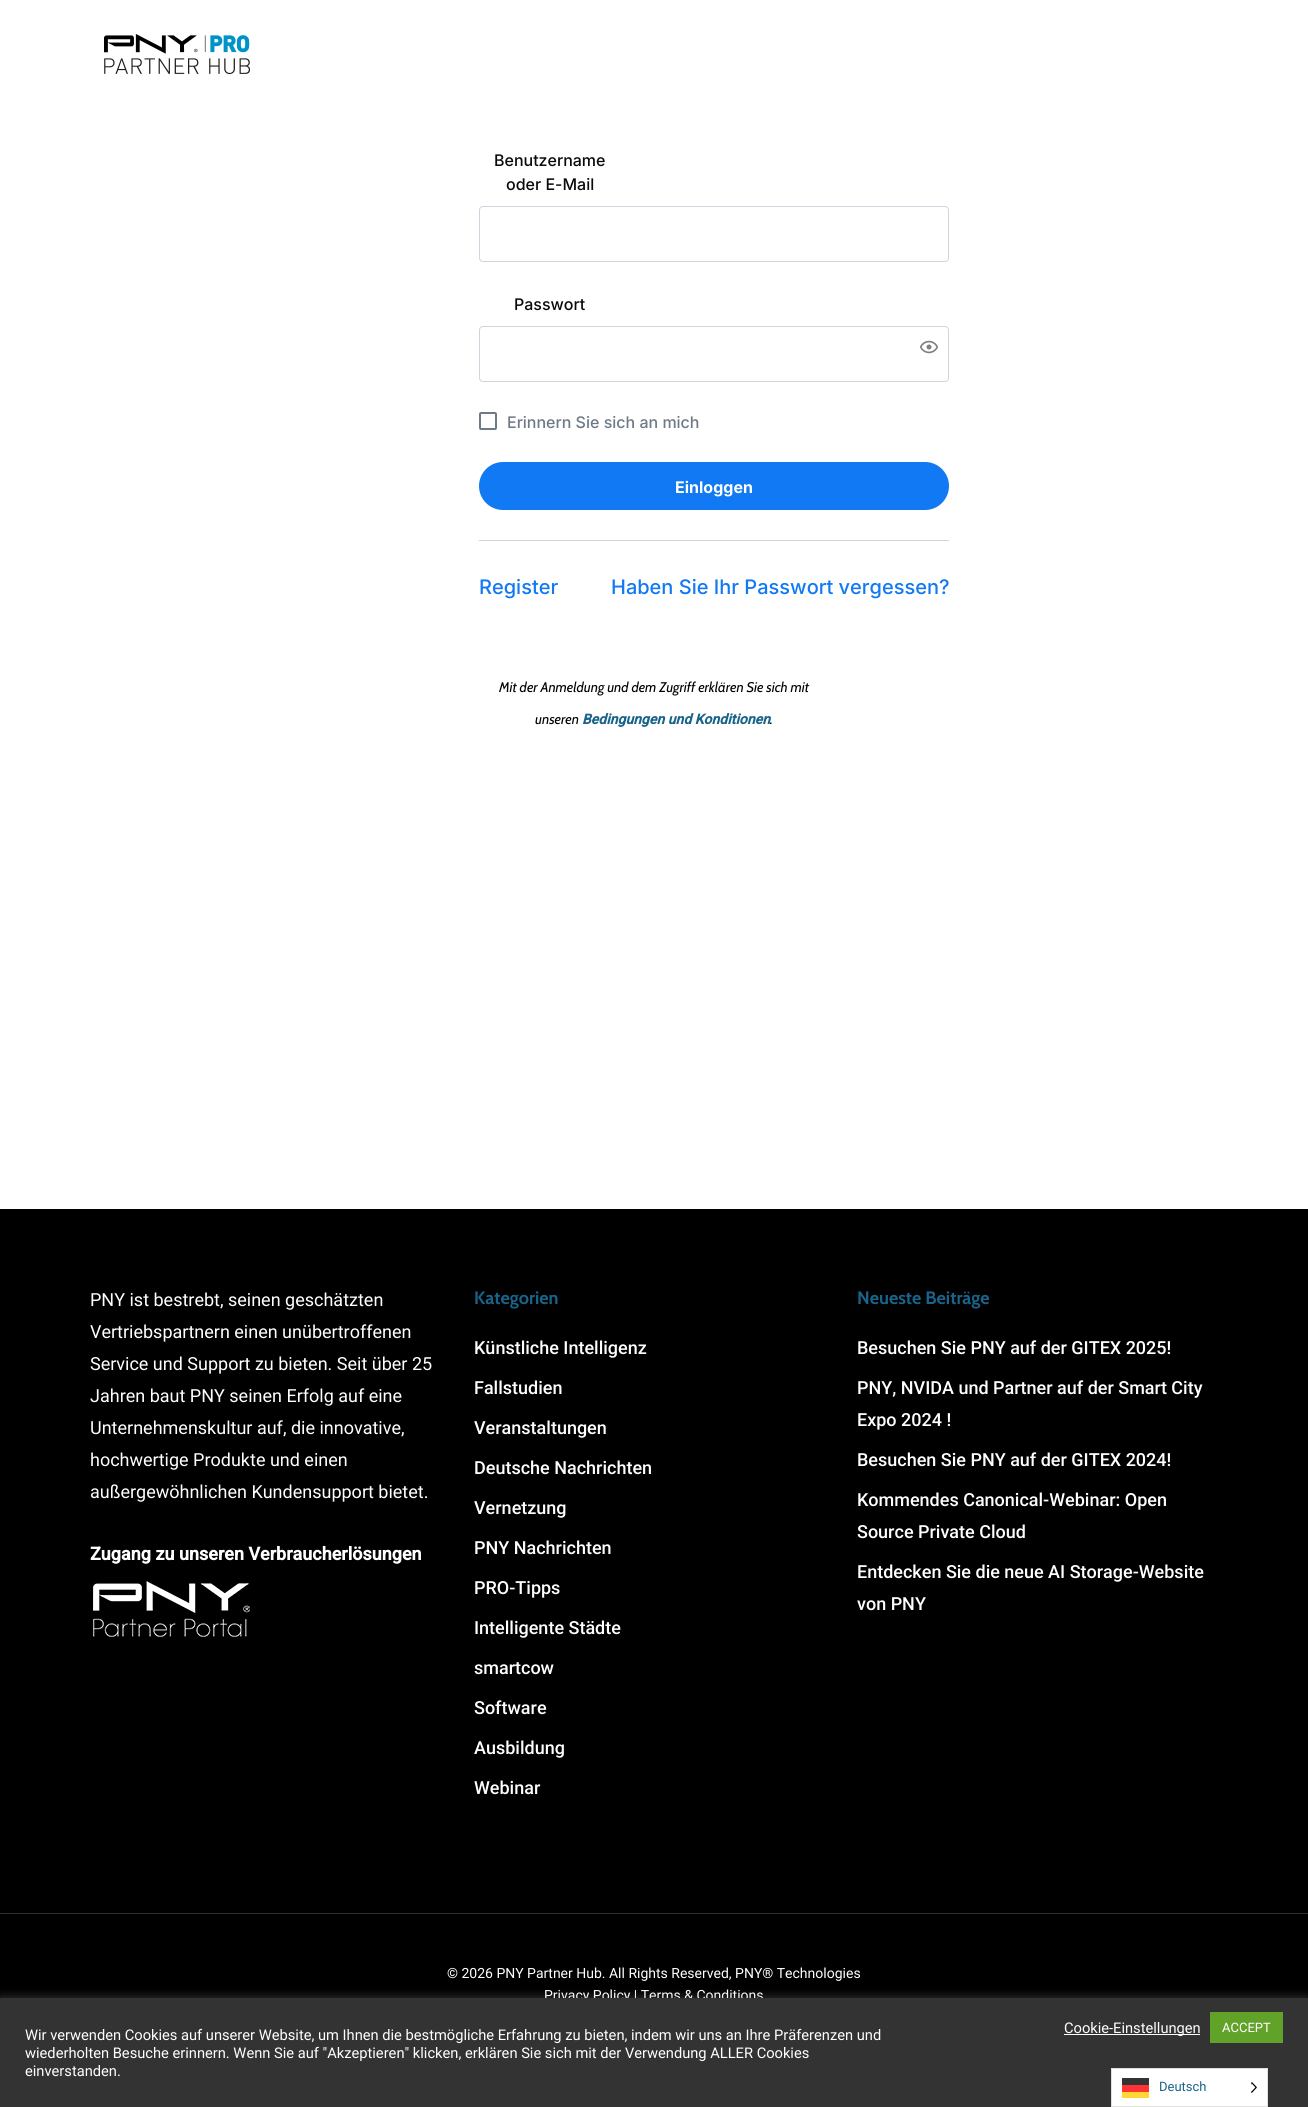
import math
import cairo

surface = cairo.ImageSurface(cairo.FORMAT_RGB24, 1308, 2107)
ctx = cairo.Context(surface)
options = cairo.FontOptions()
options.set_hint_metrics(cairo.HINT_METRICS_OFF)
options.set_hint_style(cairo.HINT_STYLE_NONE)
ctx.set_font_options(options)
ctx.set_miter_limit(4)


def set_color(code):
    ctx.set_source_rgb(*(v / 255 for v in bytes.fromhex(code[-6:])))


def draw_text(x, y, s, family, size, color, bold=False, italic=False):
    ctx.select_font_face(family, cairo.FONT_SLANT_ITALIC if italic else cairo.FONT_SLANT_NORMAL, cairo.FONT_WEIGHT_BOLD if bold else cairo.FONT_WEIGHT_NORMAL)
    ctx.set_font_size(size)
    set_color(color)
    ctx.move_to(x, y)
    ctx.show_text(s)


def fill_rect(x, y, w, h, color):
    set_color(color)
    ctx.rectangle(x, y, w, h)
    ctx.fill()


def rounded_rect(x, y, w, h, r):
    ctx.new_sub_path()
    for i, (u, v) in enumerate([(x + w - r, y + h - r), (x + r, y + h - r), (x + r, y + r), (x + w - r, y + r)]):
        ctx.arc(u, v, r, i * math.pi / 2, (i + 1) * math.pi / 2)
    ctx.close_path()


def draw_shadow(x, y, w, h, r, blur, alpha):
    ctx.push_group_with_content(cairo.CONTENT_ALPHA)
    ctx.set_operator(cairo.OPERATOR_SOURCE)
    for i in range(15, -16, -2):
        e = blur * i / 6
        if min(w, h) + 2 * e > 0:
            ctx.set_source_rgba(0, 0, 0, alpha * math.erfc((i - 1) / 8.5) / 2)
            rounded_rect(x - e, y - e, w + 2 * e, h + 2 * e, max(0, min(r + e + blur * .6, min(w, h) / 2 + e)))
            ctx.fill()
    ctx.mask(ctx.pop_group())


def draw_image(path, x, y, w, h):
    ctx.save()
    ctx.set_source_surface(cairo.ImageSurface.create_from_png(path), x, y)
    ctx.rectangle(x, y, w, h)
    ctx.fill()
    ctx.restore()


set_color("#ffffff")
ctx.paint()
draw_image("assets/img1.png", 104, 34, 146, 40)
draw_text(494, 166, "Benutzername", "Inter Medium", 16, "#090a0b")
draw_text(506, 190, "oder E-Mail", "Inter Medium", 16, "#090a0b")
rounded_rect(479.5, 206.5, 469, 55, 3.5)
set_color("#cfd4de")
ctx.set_line_width(1)
ctx.stroke()
draw_text(514, 310, "Passwort", "Inter Medium", 16, "#090a0b")
rounded_rect(479.5, 326.5, 469, 55, 3.5)
set_color("#cfd4de")
ctx.stroke()
draw_image("assets/img2.png", 920, 340, 18, 14)
rounded_rect(480, 413, 16, 16, 1)
set_color("#6e7a86")
ctx.set_line_width(2)
ctx.stroke()
draw_text(507, 428, "Erinnern Sie sich an mich", "Inter Medium", 16, "#6e7a86")
fill_rect(479, 540, 470, 1, "#cfd4de")
set_color("#1079f3")
rounded_rect(479, 462, 470, 48, 24)
ctx.fill()
draw_text(675, 493, "Einloggen", "Inter", 16, "#ffffff", bold=True)
draw_text(479, 594, "Register", "Inter Medium", 20, "#1079f3")
draw_text(611, 594, "Haben Sie Ihr Passwort vergessen?", "Inter Medium", 20, "#1079f3")
draw_text(499, 692, "Mit der Anmeldung und dem Zugriff erklären Sie sich mit", "Cabin", 14, "#000000", italic=True)
draw_text(535, 724, "unseren", "Cabin", 14, "#000000", italic=True)
draw_text(582, 724, "Bedingungen und Konditionen", "Roboto", 14, "#19648a", bold=True, italic=True)
draw_text(770, 724, ".", "Cabin", 14, "#000000", italic=True)
fill_rect(0, 1209, 1308, 789, "#000000")
draw_text(90, 1306, "PNY ist bestrebt, seinen geschätzten", "Roboto", 18, "#ffffff")
draw_text(90, 1338, "Vertriebspartnern einen unübertroffenen", "Roboto", 18, "#ffffff")
draw_text(90, 1370, "Service und Support zu bieten. Seit über 25", "Roboto", 18, "#ffffff")
draw_text(90, 1402, "Jahren baut PNY seinen Erfolg auf eine", "Roboto", 18, "#ffffff")
draw_text(90, 1434, "Unternehmenskultur auf, die innovative,", "Roboto", 18, "#ffffff")
draw_text(90, 1466, "hochwertige Produkte und einen", "Roboto", 18, "#ffffff")
draw_text(90, 1498, "außergewöhnlichen Kundensupport bietet.", "Roboto", 18, "#ffffff")
draw_text(90, 1560, "Zugang zu unseren Verbraucherlösungen", "Roboto", 18, "#ffffff", bold=True)
draw_image("assets/img3.png", 93, 1581, 157, 56)
draw_text(474, 1304, "Kategorien", "Cabin", 18, "#19648a", bold=True)
draw_text(474, 1354, "Künstliche Intelligenz", "Roboto Medium", 18, "#ffffff")
draw_text(474, 1394, "Fallstudien", "Roboto Medium", 18, "#ffffff")
draw_text(474, 1434, "Veranstaltungen", "Roboto Medium", 18, "#ffffff")
draw_text(474, 1474, "Deutsche Nachrichten", "Roboto Medium", 18, "#ffffff")
draw_text(474, 1514, "Vernetzung", "Roboto Medium", 18, "#ffffff")
draw_text(474, 1554, "PNY Nachrichten", "Roboto Medium", 18, "#ffffff")
draw_text(474, 1594, "PRO-Tipps", "Roboto Medium", 18, "#ffffff")
draw_text(474, 1634, "Intelligente Städte", "Roboto Medium", 18, "#ffffff")
draw_text(474, 1674, "smartcow", "Roboto Medium", 18, "#ffffff")
draw_text(474, 1714, "Software", "Roboto Medium", 18, "#ffffff")
draw_text(474, 1754, "Ausbildung", "Roboto Medium", 18, "#ffffff")
draw_text(474, 1794, "Webinar", "Roboto Medium", 18, "#ffffff")
draw_text(857, 1304, "Neueste Beiträge", "Cabin", 18, "#19648a", bold=True)
draw_text(857, 1354, "Besuchen Sie PNY auf der GITEX 2025!", "Roboto Medium", 18, "#ffffff")
draw_text(857, 1394, "PNY, NVIDA und Partner auf der Smart City", "Roboto Medium", 18, "#ffffff")
draw_text(857, 1426, "Expo 2024 !", "Roboto Medium", 18, "#ffffff")
draw_text(857, 1466, "Besuchen Sie PNY auf der GITEX 2024!", "Roboto Medium", 18, "#ffffff")
draw_text(857, 1506, "Kommendes Canonical-Webinar: Open", "Roboto Medium", 18, "#ffffff")
draw_text(857, 1538, "Source Private Cloud", "Roboto Medium", 18, "#ffffff")
draw_text(857, 1578, "Entdecken Sie die neue AI Storage-Website", "Roboto Medium", 18, "#ffffff")
draw_text(857, 1610, "von PNY", "Roboto Medium", 18, "#ffffff")
fill_rect(0, 1913, 1308, 1, "#2e2e2e")
draw_text(447, 1978, "© 2026 PNY Partner Hub. All Rights Reserved, PNY® Technologies", "Roboto", 14, "#ffffff")
draw_text(544, 2000, "Privacy Policy | Terms & Conditions", "Roboto", 14, "#ffffff")
set_color("#acabab")
draw_shadow(0, 1997, 1308, 109, 0, 5, 0.3)
fill_rect(0, 1998, 1308, 109, "#333333")
draw_text(25, 2040, "Wir verwenden Cookies auf unserer Website, um Ihnen die bestmögliche Erfahrung zu bieten, indem wir uns an Ihre Präferenzen und", "Roboto", 14.67, "#ffffff")
draw_text(25, 2058, "wiederholten Besuche erinnern. Wenn Sie auf \"Akzeptieren\" klicken, erklären Sie sich mit der Verwendung ALLER Cookies", "Roboto", 14.67, "#ffffff")
draw_text(25, 2076, "einverstanden.", "Roboto", 14.67, "#ffffff")
fill_rect(1064, 2034, 136, 1, "#ffffff")
draw_text(1064, 2033, "Cookie-Einstellungen", "Roboto", 14.67, "#ffffff")
fill_rect(1210, 2012, 73, 31, "#61a229")
draw_text(1222, 2032, "ACCEPT", "Roboto", 13, "#ffffff")
ctx.rectangle(1111.5, 2068.5, 156, 38)
ctx.fill_preserve()
set_color("#e0e0e0")
ctx.set_line_width(1)
ctx.stroke()
fill_rect(1122, 2092, 27, 6, "#ffd633")
fill_rect(1122, 2078, 27, 7, "#333334")
fill_rect(1122, 2085, 27, 7, "#ff3333")
draw_text(1159, 2091, "Deutsch", "Roboto", 13, "#19648a")
draw_image("assets/img4.png", 1251, 2082, 6, 11)
surface.write_to_png("output.png")
